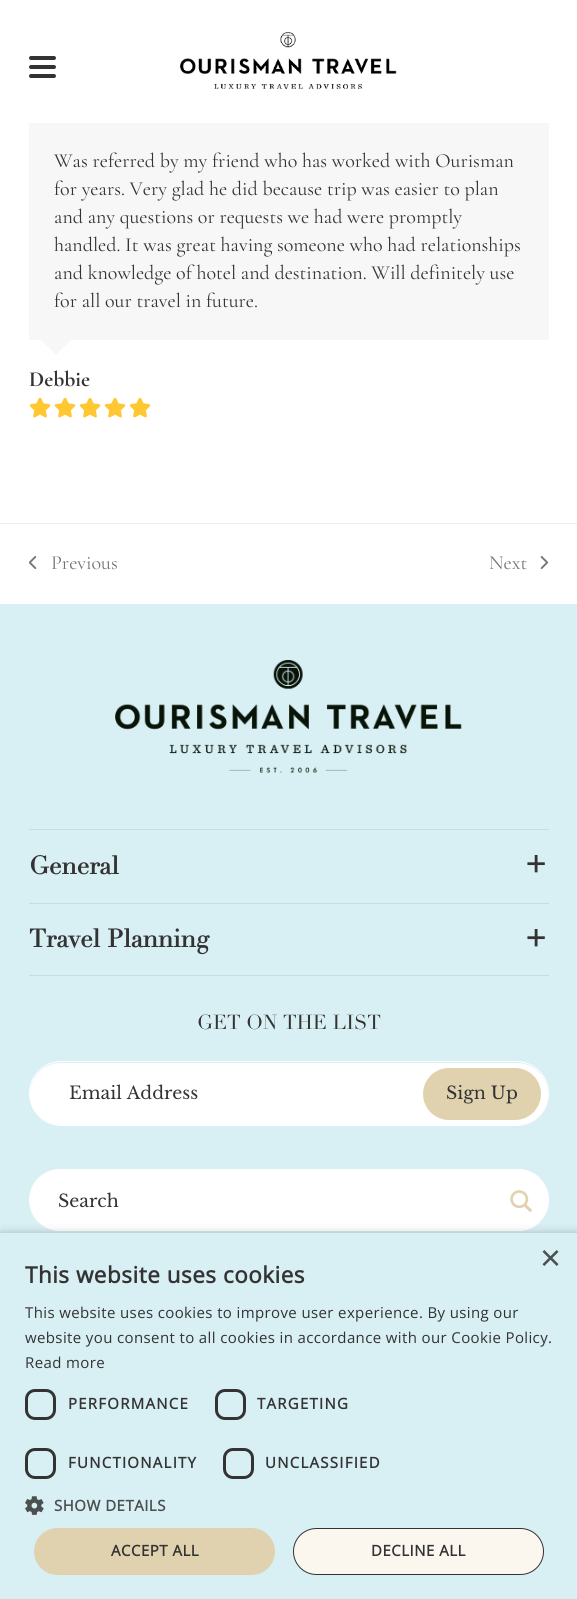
import math
import cairo

surface = cairo.ImageSurface(cairo.FORMAT_RGB24, 577, 1599)
ctx = cairo.Context(surface)
options = cairo.FontOptions()
options.set_hint_metrics(cairo.HINT_METRICS_OFF)
options.set_hint_style(cairo.HINT_STYLE_NONE)
ctx.set_font_options(options)
ctx.set_miter_limit(4)


def set_color(code):
    ctx.set_source_rgb(*(v / 255 for v in bytes.fromhex(code[-6:])))


def draw_text(x, y, s, family, size, color, bold=False, italic=False):
    ctx.select_font_face(family, cairo.FONT_SLANT_ITALIC if italic else cairo.FONT_SLANT_NORMAL, cairo.FONT_WEIGHT_BOLD if bold else cairo.FONT_WEIGHT_NORMAL)
    ctx.set_font_size(size)
    set_color(color)
    ctx.move_to(x, y)
    ctx.show_text(s)


def draw_spaced(x, y, s, letter, word):
    ctx.move_to(x, y)
    for ch in s:
        ctx.show_text(ch)
        ctx.rel_move_to(letter + word * (ch == ' '), 0)


def fill_rect(x, y, w, h, color):
    set_color(color)
    ctx.rectangle(x, y, w, h)
    ctx.fill()


def rounded_rect(x, y, w, h, r):
    ctx.new_sub_path()
    for i, (u, v) in enumerate([(x + w - r, y + h - r), (x + r, y + h - r), (x + r, y + r), (x + w - r, y + r)]):
        ctx.arc(u, v, r, i * math.pi / 2, (i + 1) * math.pi / 2)
    ctx.close_path()


def draw_shadow(x, y, w, h, r, blur, alpha):
    ctx.push_group_with_content(cairo.CONTENT_ALPHA)
    ctx.set_operator(cairo.OPERATOR_SOURCE)
    for i in range(15, -16, -2):
        e = blur * i / 6
        if min(w, h) + 2 * e > 0:
            ctx.set_source_rgba(0, 0, 0, alpha * math.erfc((i - 1) / 8.5) / 2)
            rounded_rect(x - e, y - e, w + 2 * e, h + 2 * e, max(0, min(r + e + blur * .6, min(w, h) / 2 + e)))
            ctx.fill()
    ctx.mask(ctx.pop_group())


def draw_image(path, x, y, w, h):
    ctx.save()
    ctx.set_source_surface(cairo.ImageSurface.create_from_png(path), x, y)
    ctx.rectangle(x, y, w, h)
    ctx.fill()
    ctx.restore()


set_color("#ffffff")
ctx.paint()
set_color("#333333")
rounded_rect(29, 65, 27, 4, 2)
ctx.fill()
rounded_rect(29, 56, 27, 4, 2)
ctx.fill()
rounded_rect(29, 74, 27, 4, 2)
ctx.fill()
draw_image("assets/img1.png", 180, 32, 217, 57)
fill_rect(29, 123, 520, 217, "#f7f7f7")
draw_text(54, 167, "Was referred by my friend who has worked with Ourisman", "Cormorant Garamond", 20, "#333333")
draw_text(54, 195, "for years. Very glad he did because trip was easier to plan", "Cormorant Garamond", 20, "#333333")
draw_text(54, 223, "and any questions or requests we had were promptly", "Cormorant Garamond", 20, "#333333")
draw_text(54, 251, "handled. It was great having someone who had relationships", "Cormorant Garamond", 20, "#333333")
draw_text(54, 279, "and knowledge of hotel and destination. Will definitely use", "Cormorant Garamond", 20, "#333333")
draw_text(54, 307, "for all our travel in future.", "Cormorant Garamond", 20, "#333333")
set_color("#f7f7f7")
ctx.new_path()
ctx.move_to(41, 340)
ctx.line_to(71, 340)
ctx.line_to(56, 355)
ctx.close_path()
ctx.fill()
draw_text(29, 386, "Debbie", "Cormorant Garamond", 21.5, "#333333", bold=True)
draw_image("assets/img2.png", 29, 398, 22, 20)
draw_image("assets/img2.png", 54, 398, 22, 20)
draw_image("assets/img2.png", 79, 398, 22, 20)
draw_image("assets/img2.png", 104, 398, 22, 20)
draw_image("assets/img2.png", 129, 398, 22, 20)
fill_rect(0, 523, 577, 1, "#eeeeee")
draw_image("assets/img3.png", 29, 556, 8, 13)
draw_text(51, 569, "Previous", "Cormorant Garamond", 20, "#757575")
draw_text(489, 569, "Next", "Cormorant Garamond", 20, "#757575")
draw_image("assets/img4.png", 540, 556, 9, 13)
fill_rect(0, 604, 577, 629, "#d8eff4")
draw_image("assets/img5.png", 115, 660, 347, 113)
fill_rect(29, 829, 520, 1, "#c7dce0")
draw_text(29, 874, "General", "Didot", 25, "#333333", bold=True)
draw_text(526, 876, "+", "Libre Baskerville", 35, "#333333", bold=True)
fill_rect(29, 903, 520, 1, "#c7dce0")
draw_text(29, 947, "Travel Planning", "Didot", 25, "#333333", bold=True)
draw_text(526, 950, "+", "Libre Baskerville", 35, "#333333", bold=True)
fill_rect(29, 975, 520, 1, "#c7dce0")
draw_text(197, 1029, "GET ON THE LIST", "Didot", 20, "#333333")
rounded_rect(29.5, 1061.5, 519, 64, 32)
set_color("#ffffff")
ctx.set_line_width(1)
ctx.stroke()
rounded_rect(30, 1063, 518, 62, 31)
ctx.fill()
draw_text(69, 1099, "Email Address", "Libre Baskerville", 17.5, "#333333")
set_color("#e1d2af")
rounded_rect(423, 1068, 118, 52, 26)
ctx.fill()
draw_text(446, 1099, "Sign Up", "Libre Baskerville", 17.5, "#333333")
set_color("#ffffff")
rounded_rect(29, 1169, 520, 62, 31)
ctx.fill()
draw_text(58, 1207, "Search", "Libre Baskerville", 17.5, "#333333")
ctx.save()
ctx.rectangle(504, 1170, 35, 61)
ctx.clip()
ctx.set_source_rgba(1, 1, 1, 0.64)
ctx.set_fill_rule(cairo.FILL_RULE_EVEN_ODD)
ctx.new_path()
ctx.move_to(502, 1171)
ctx.line_to(502, 1231)
ctx.line_to(380, 1231)
ctx.line_to(380, 1169)
ctx.line_to(518, 1169)
ctx.curve_to(522, 1169, 526, 1170, 529, 1171)
ctx.close_path()
ctx.move_to(538, 1224)
ctx.curve_to(552, 1211, 552, 1189, 538, 1176)
ctx.close_path()
ctx.fill()
ctx.restore()
ctx.save()
rounded_rect(29, 1169, 520, 62, 31)
ctx.clip()
fill_rect(504, 1170, 35, 61, "#ffffff")
ctx.restore()
draw_image("assets/img6.png", 510, 1190, 22, 23)
set_color("#000000")
draw_shadow(1, 1235, 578, 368, 0, 5, 0.35)
fill_rect(0, 1233, 577, 366, "#d8eff4")
draw_text(540, 1270, "×", "Liberation Sans", 36, "#4c4f50")
ctx.select_font_face("Open Sans", cairo.FONT_SLANT_NORMAL, cairo.FONT_WEIGHT_BOLD)
ctx.set_font_size(22.5)
set_color("#333333")
draw_spaced(25, 1283, "This website uses cookies", 0.5, 0)
ctx.select_font_face("Open Sans")
ctx.set_font_size(15)
draw_spaced(25, 1318, "This website uses cookies to improve user experience. By using our", 0.38, 0)
draw_spaced(25, 1343, "website you consent to all cookies in accordance with our Cookie Policy.", 0.38, 0)
draw_spaced(25, 1368, "Read more", 0.38, 0)
rounded_rect(26.5, 1390.5, 28, 28, 8.5)
ctx.set_line_width(3)
ctx.stroke()
ctx.select_font_face("Open Sans", cairo.FONT_SLANT_NORMAL, cairo.FONT_WEIGHT_BOLD)
draw_spaced(68, 1409, "PERFORMANCE", 1.25, 0)
rounded_rect(216.5, 1390.5, 28, 28, 8.5)
ctx.stroke()
draw_spaced(257, 1409, "TARGETING", 1.25, 0)
rounded_rect(26.5, 1449.5, 28, 28, 8.5)
ctx.stroke()
draw_spaced(68, 1468, "FUNCTIONALITY", 1.25, 0)
rounded_rect(224.5, 1449.5, 28, 28, 8.5)
ctx.stroke()
draw_spaced(265, 1468, "UNCLASSIFIED", 1.25, 0)
draw_image("assets/img7.png", 25, 1496, 19, 19)
set_color("#4c4f50")
draw_spaced(54, 1511, "SHOW DETAILS", 0.5, 0)
set_color("#e1d2af")
rounded_rect(34, 1528, 241, 47, 23.5)
ctx.fill()
set_color("#333333")
draw_spaced(111, 1556, "ACCEPT ALL", 0.5, 0)
set_color("#fbf7ef")
rounded_rect(293.5, 1528.5, 250, 46, 23)
ctx.fill_preserve()
set_color("#333333")
ctx.set_line_width(1)
ctx.stroke()
draw_spaced(371, 1556, "DECLINE ALL", 0.5, 0)
surface.write_to_png("output.png")
